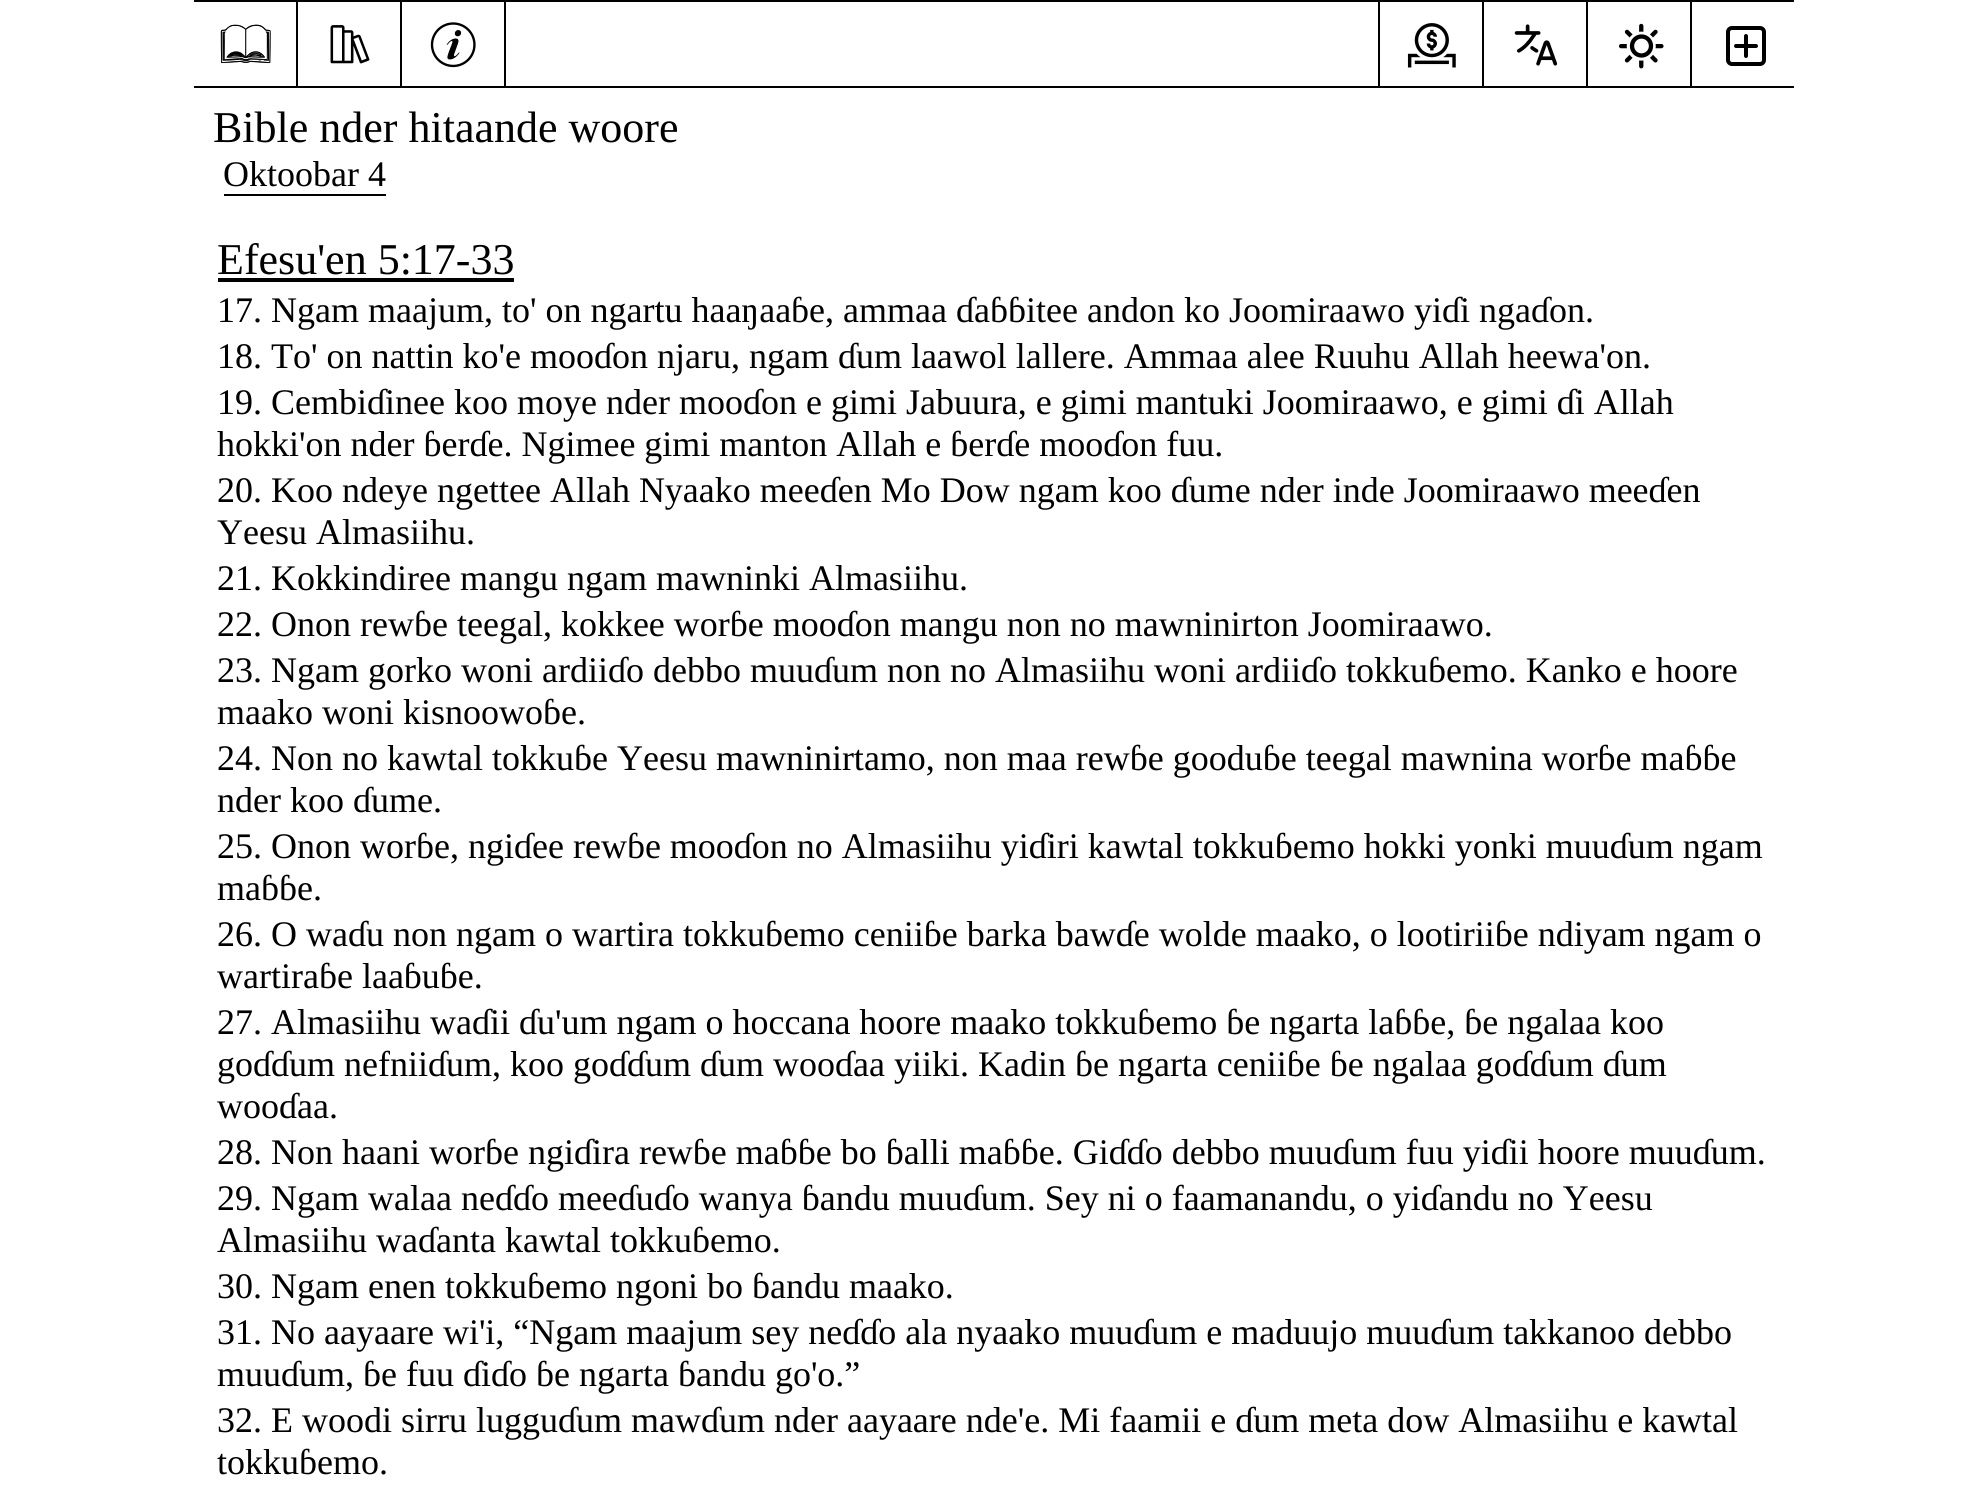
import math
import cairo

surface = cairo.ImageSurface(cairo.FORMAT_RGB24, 1985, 1492)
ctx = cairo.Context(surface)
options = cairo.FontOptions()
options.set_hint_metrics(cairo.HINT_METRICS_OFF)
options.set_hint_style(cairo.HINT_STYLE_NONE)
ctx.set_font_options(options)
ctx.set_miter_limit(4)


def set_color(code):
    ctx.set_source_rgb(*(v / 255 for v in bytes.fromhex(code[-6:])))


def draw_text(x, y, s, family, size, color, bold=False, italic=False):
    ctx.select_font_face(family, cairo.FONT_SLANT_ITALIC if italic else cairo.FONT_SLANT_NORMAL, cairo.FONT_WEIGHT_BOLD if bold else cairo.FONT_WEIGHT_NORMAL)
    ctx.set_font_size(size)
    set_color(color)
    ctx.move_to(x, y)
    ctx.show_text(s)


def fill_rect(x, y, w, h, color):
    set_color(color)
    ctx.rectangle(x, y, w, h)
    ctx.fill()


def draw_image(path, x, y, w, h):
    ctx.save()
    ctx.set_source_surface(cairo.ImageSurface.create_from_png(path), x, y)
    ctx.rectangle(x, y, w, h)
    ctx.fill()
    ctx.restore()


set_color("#ffffff")
ctx.paint()
fill_rect(194, 0, 1600, 2, "#000000")
draw_image("assets/img1.png", 220, 24, 51, 40)
fill_rect(296, 2, 2, 86, "#000000")
draw_image("assets/img2.png", 330, 25, 40, 39)
fill_rect(504, 2, 2, 86, "#000000")
fill_rect(400, 2, 2, 86, "#000000")
draw_image("assets/img3.png", 430, 22, 46, 46)
fill_rect(194, 86, 1600, 2, "#000000")
fill_rect(1378, 2, 2, 86, "#000000")
draw_image("assets/img4.png", 1407, 23, 49, 45)
fill_rect(1482, 2, 2, 86, "#000000")
draw_image("assets/img5.png", 1514, 24, 44, 42)
fill_rect(1690, 2, 2, 86, "#000000")
fill_rect(1586, 2, 2, 86, "#000000")
draw_image("assets/img6.png", 1619, 23, 45, 46)
draw_image("assets/img7.png", 1726, 26, 40, 40)
draw_text(213, 142, "Bible nder hitaande woore", "Liberation Serif", 44, "#000000")
draw_text(223, 186, "Oktoobar 4", "Liberation Serif", 36, "#000000")
fill_rect(224, 194, 162, 2, "#000000")
draw_text(217, 274, "Efesu'en 5:17-33", "Liberation Serif", 44, "#000000")
fill_rect(218, 278, 296, 4, "#000000")
draw_text(217, 322, "17. Ngam maajum, to' on ngartu haaŋaaɓe, ammaa ɗaɓɓitee andon ko Joomiraawo yiɗi ngaɗon.", "Liberation Serif", 36, "#000000")
draw_text(217, 368, "18. To' on nattin ko'e mooɗon njaru, ngam ɗum laawol lallere. Ammaa alee Ruuhu Allah heewa'on.", "Liberation Serif", 36, "#000000")
draw_text(217, 414, "19. Cembiɗinee koo moye nder mooɗon e gimi Jabuura, e gimi mantuki Joomiraawo, e gimi ɗi Allah", "Liberation Serif", 36, "#000000")
draw_text(217, 456, "hokki'on nder ɓerɗe. Ngimee gimi manton Allah e ɓerɗe mooɗon fuu.", "Liberation Serif", 36, "#000000")
draw_text(217, 502, "20. Koo ndeye ngettee Allah Nyaako meeɗen Mo Dow ngam koo ɗume nder inde Joomiraawo meeɗen", "Liberation Serif", 36, "#000000")
draw_text(217, 544, "Yeesu Almasiihu.", "Liberation Serif", 36, "#000000")
draw_text(217, 590, "21. Kokkindiree mangu ngam mawninki Almasiihu.", "Liberation Serif", 36, "#000000")
draw_text(217, 636, "22. Onon rewɓe teegal, kokkee worɓe mooɗon mangu non no mawninirton Joomiraawo.", "Liberation Serif", 36, "#000000")
draw_text(217, 682, "23. Ngam gorko woni ardiiɗo debbo muuɗum non no Almasiihu woni ardiiɗo tokkuɓemo. Kanko e hoore", "Liberation Serif", 36, "#000000")
draw_text(217, 724, "maako woni kisnoowoɓe.", "Liberation Serif", 36, "#000000")
draw_text(217, 770, "24. Non no kawtal tokkuɓe Yeesu mawninirtamo, non maa rewɓe gooduɓe teegal mawnina worɓe maɓɓe", "Liberation Serif", 36, "#000000")
draw_text(217, 812, "nder koo ɗume.", "Liberation Serif", 36, "#000000")
draw_text(217, 858, "25. Onon worɓe, ngiɗee rewɓe mooɗon no Almasiihu yiɗiri kawtal tokkuɓemo hokki yonki muuɗum ngam", "Liberation Serif", 36, "#000000")
draw_text(217, 900, "maɓɓe.", "Liberation Serif", 36, "#000000")
draw_text(217, 946, "26. O waɗu non ngam o wartira tokkuɓemo ceniiɓe barka bawɗe wolde maako, o lootiriiɓe ndiyam ngam o", "Liberation Serif", 36, "#000000")
draw_text(217, 988, "wartiraɓe laaɓuɓe.", "Liberation Serif", 36, "#000000")
draw_text(217, 1034, "27. Almasiihu waɗii ɗu'um ngam o hoccana hoore maako tokkuɓemo ɓe ngarta laɓɓe, ɓe ngalaa koo", "Liberation Serif", 36, "#000000")
draw_text(217, 1076, "goɗɗum nefniiɗum, koo goɗɗum ɗum wooɗaa yiiki. Kadin ɓe ngarta ceniiɓe ɓe ngalaa goɗɗum ɗum", "Liberation Serif", 36, "#000000")
draw_text(217, 1118, "wooɗaa.", "Liberation Serif", 36, "#000000")
draw_text(217, 1164, "28. Non haani worɓe ngiɗira rewɓe maɓɓe bo ɓalli maɓɓe. Giɗɗo debbo muuɗum fuu yiɗii hoore muuɗum.", "Liberation Serif", 36, "#000000")
draw_text(217, 1210, "29. Ngam walaa neɗɗo meeɗuɗo wanya ɓandu muuɗum. Sey ni o faamanandu, o yiɗandu no Yeesu", "Liberation Serif", 36, "#000000")
draw_text(217, 1252, "Almasiihu waɗanta kawtal tokkuɓemo.", "Liberation Serif", 36, "#000000")
draw_text(217, 1298, "30. Ngam enen tokkuɓemo ngoni bo ɓandu maako.", "Liberation Serif", 36, "#000000")
draw_text(217, 1344, "31. No aayaare wi'i, “Ngam maajum sey neɗɗo ala nyaako muuɗum e maduujo muuɗum takkanoo debbo", "Liberation Serif", 36, "#000000")
draw_text(217, 1386, "muuɗum, ɓe fuu ɗiɗo ɓe ngarta ɓandu go'o.”", "Liberation Serif", 36, "#000000")
draw_text(217, 1432, "32. E woodi sirru lugguɗum mawɗum nder aayaare nde'e. Mi faamii e ɗum meta dow Almasiihu e kawtal", "Liberation Serif", 36, "#000000")
draw_text(217, 1474, "tokkuɓemo.", "Liberation Serif", 36, "#000000")
surface.write_to_png("output.png")
